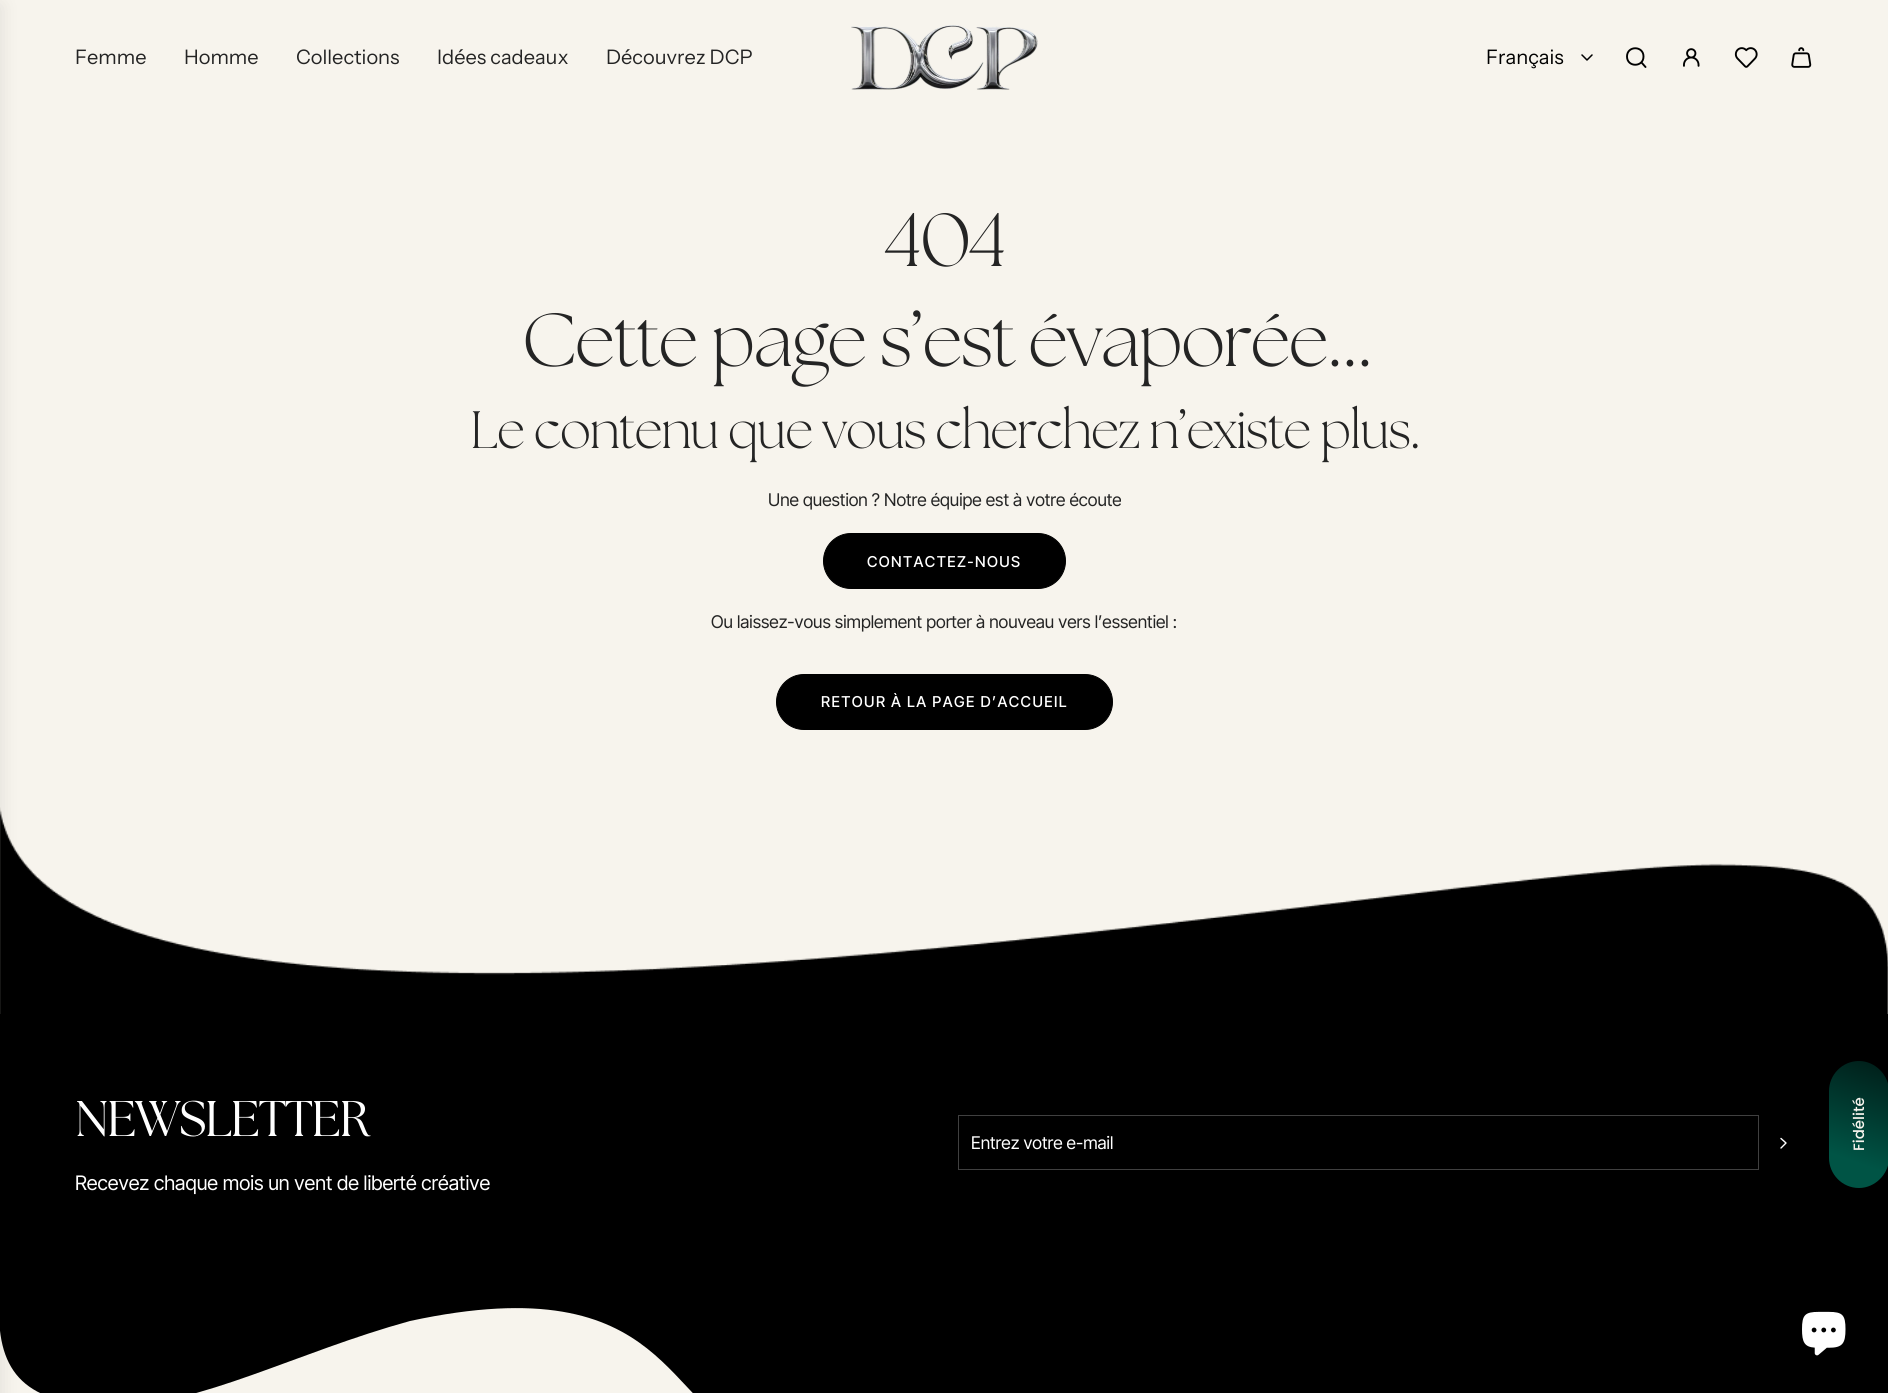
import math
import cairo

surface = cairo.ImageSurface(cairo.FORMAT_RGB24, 1888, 1393)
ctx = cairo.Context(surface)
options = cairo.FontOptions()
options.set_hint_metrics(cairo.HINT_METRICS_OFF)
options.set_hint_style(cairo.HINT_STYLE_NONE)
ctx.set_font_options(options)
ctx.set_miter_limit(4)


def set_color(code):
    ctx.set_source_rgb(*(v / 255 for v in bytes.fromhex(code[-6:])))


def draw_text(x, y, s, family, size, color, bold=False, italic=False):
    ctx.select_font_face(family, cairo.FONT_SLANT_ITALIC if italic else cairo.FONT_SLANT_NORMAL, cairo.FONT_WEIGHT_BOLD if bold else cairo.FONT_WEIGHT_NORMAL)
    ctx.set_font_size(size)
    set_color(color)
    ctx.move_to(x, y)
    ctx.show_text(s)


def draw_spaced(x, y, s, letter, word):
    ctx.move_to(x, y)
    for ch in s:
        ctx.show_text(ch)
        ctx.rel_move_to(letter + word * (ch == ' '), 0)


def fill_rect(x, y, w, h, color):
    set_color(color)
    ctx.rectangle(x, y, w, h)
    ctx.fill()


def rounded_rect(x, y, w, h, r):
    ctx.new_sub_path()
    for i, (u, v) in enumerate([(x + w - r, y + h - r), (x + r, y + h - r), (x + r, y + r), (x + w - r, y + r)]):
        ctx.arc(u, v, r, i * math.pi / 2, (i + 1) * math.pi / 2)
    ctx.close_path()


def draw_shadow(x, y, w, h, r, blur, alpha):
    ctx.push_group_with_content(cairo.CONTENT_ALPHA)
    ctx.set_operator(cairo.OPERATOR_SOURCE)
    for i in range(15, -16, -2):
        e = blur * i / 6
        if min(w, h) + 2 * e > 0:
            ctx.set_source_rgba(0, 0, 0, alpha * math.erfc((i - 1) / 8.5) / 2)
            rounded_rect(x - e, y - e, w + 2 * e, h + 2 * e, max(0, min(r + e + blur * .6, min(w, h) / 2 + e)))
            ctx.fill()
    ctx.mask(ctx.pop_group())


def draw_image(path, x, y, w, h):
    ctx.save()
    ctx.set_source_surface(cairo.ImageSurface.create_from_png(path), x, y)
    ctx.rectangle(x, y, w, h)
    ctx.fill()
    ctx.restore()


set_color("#f7f4ed")
ctx.paint()
draw_image("assets/img5.png", 0, 807, 1888, 207)
fill_rect(0, 1014, 1888, 256, "#000000")
ctx.new_path()
ctx.move_to(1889, 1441)
ctx.line_to(781, 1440)
ctx.curve_to(773, 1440, 764, 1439, 756, 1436)
ctx.curve_to(663, 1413, 674, 1264, 410, 1321)
ctx.curve_to(297, 1352, 199, 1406, 115, 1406)
ctx.curve_to(31, 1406, -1, 1378, -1, 1312)
ctx.line_to(-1, 1270)
ctx.line_to(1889, 1270)
ctx.close_path()
ctx.fill()
set_color("#000000")
draw_shadow(-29, 6, 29, 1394, 0, 9.5, 0.1)
draw_text(75, 64, "Femme", "Instrument Sans", 20, "#242424")
draw_text(184, 64, "Homme", "Instrument Sans", 20, "#242424")
draw_text(296, 64, "Collections", "Instrument Sans", 20, "#242424")
draw_text(437, 64, "Idées cadeaux", "Instrument Sans", 20, "#242424")
draw_text(606, 64, "Découvrez DCP", "Instrument Sans", 20, "#242424")
draw_image("assets/img1.png", 851, 25, 187, 65)
draw_text(1486, 64, "Français", "Instrument Sans", 20, "#000000")
ctx.new_path()
ctx.move_to(1582, 55)
ctx.line_to(1587, 60)
ctx.line_to(1592, 55)
ctx.set_line_width(1.5)
ctx.set_line_cap(cairo.LINE_CAP_ROUND)
ctx.set_line_join(cairo.LINE_JOIN_ROUND)
ctx.stroke()
ctx.new_path()
ctx.move_to(1641.5, 62.5)
ctx.line_to(1645.5, 67)
ctx.move_to(1627, 56.5)
ctx.curve_to(1627, 67.5, 1643.5, 67.5, 1643.5, 56.5)
ctx.curve_to(1643.5, 45.5, 1627, 45.5, 1627, 56.5)
ctx.close_path()
ctx.set_line_width(1.9)
ctx.stroke()
draw_image("assets/img2.png", 1683, 48, 17, 19)
draw_image("assets/img3.png", 1734, 47, 24, 21)
draw_image("assets/img4.png", 1791, 47, 21, 21)
ctx.select_font_face("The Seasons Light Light")
ctx.set_font_size(75)
set_color("#242424")
draw_spaced(884, 266, "404", -2.25, 0)
draw_spaced(522, 366, "Cette page s’est évaporée…", -2.25, 0)
ctx.set_font_size(52.5)
draw_spaced(470, 448, "Le contenu que vous cherchez n’existe plus.", -1.55, 0)
draw_text(768, 506, "Une question ? Notre équipe est à votre écoute", "Inter Tight", 17.5, "#242424")
set_color("#000000")
rounded_rect(823.5, 533.5, 242, 55, 27.5)
ctx.fill_preserve()
ctx.set_line_width(1)
ctx.set_line_cap(cairo.LINE_CAP_BUTT)
ctx.set_line_join(cairo.LINE_JOIN_MITER)
ctx.stroke()
ctx.select_font_face("Inter Tight Medium")
ctx.set_font_size(15)
set_color("#ffffff")
draw_spaced(867, 567, "CONTACTEZ-NOUS", 1.4, 0)
draw_text(711, 628, "Ou laissez-vous simplement porter à nouveau vers l’essentiel :", "Inter Tight", 17.5, "#242424")
set_color("#000000")
rounded_rect(776.5, 674.5, 336, 55, 27.5)
ctx.fill_preserve()
ctx.stroke()
ctx.select_font_face("Inter Tight Medium")
ctx.set_font_size(15)
set_color("#ffffff")
draw_spaced(821, 707, "RETOUR À LA PAGE D’ACCUEIL", 1.4, 0)
ctx.select_font_face("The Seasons")
ctx.set_font_size(50)
draw_spaced(75, 1136, "NEWSLETTER", -1.5, 0)
draw_text(75, 1190, "Recevez chaque mois un vent de liberté créative", "Inter Tight", 20, "#ffffff")
ctx.rectangle(958.5, 1115.5, 800, 54)
set_color("#404040")
ctx.stroke()
draw_text(971, 1149, "Entrez votre e-mail", "Inter Tight", 17.5, "#ffffff")
ctx.new_path()
ctx.move_to(1781, 1138.5)
ctx.line_to(1786, 1143)
ctx.line_to(1781, 1148)
ctx.set_line_width(1.4)
ctx.set_line_cap(cairo.LINE_CAP_ROUND)
ctx.set_line_join(cairo.LINE_JOIN_ROUND)
ctx.stroke()
gradient = cairo.LinearGradient(1835, 1190, 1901, 1006)
gradient.add_color_stop_rgba(0.17, 0, 0.329, 0.271, 1)
gradient.add_color_stop_rgba(1, 0, 0, 0, 1)
ctx.set_source(gradient)
ctx.new_path()
ctx.move_to(1829, 1158)
ctx.line_to(1829, 1091)
ctx.curve_to(1829, 1075, 1842, 1061, 1859, 1061)
ctx.curve_to(1875, 1061, 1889, 1075, 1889, 1091)
ctx.line_to(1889, 1158)
ctx.curve_to(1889, 1174, 1875, 1188, 1859, 1188)
ctx.curve_to(1842, 1188, 1829, 1174, 1829, 1158)
ctx.close_path()
ctx.fill()
ctx.save()
ctx.translate(1864, 1151)
ctx.rotate(-90 * math.pi / 180)
draw_text(0, 0, "Fidélité", "Poppins Medium", 15, "#f7f4ed")
ctx.restore()
draw_image("assets/img6.png", 1802, 1311, 44, 45)
surface.write_to_png("output.png")
